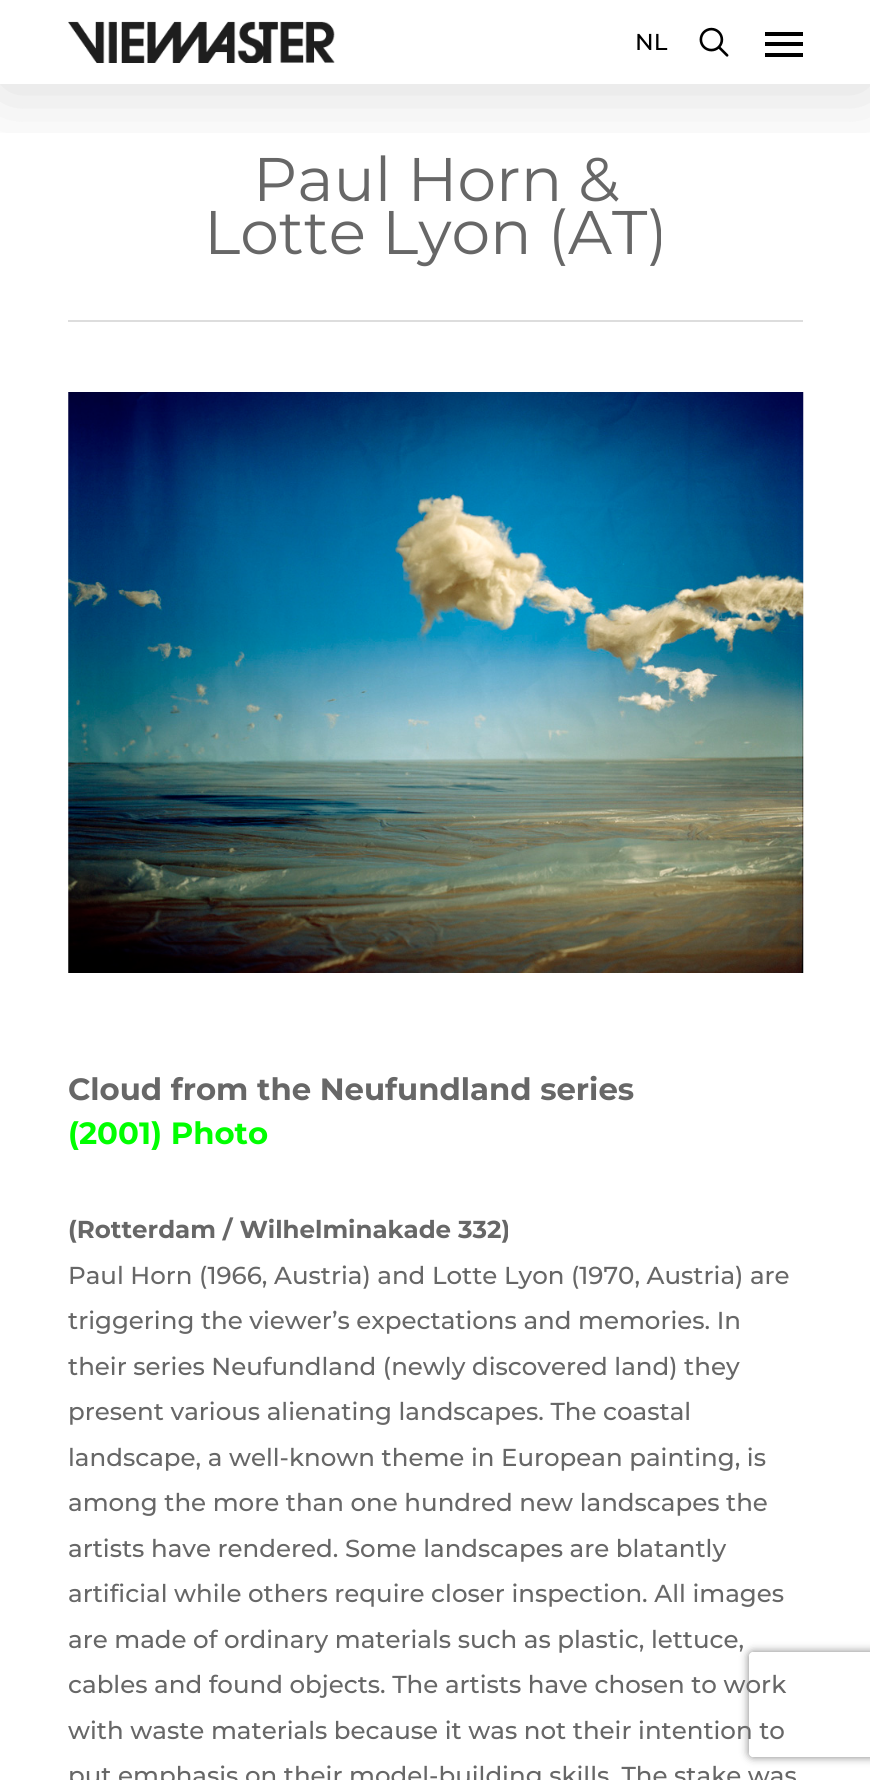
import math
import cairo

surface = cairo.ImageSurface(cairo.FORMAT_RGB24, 870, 1780)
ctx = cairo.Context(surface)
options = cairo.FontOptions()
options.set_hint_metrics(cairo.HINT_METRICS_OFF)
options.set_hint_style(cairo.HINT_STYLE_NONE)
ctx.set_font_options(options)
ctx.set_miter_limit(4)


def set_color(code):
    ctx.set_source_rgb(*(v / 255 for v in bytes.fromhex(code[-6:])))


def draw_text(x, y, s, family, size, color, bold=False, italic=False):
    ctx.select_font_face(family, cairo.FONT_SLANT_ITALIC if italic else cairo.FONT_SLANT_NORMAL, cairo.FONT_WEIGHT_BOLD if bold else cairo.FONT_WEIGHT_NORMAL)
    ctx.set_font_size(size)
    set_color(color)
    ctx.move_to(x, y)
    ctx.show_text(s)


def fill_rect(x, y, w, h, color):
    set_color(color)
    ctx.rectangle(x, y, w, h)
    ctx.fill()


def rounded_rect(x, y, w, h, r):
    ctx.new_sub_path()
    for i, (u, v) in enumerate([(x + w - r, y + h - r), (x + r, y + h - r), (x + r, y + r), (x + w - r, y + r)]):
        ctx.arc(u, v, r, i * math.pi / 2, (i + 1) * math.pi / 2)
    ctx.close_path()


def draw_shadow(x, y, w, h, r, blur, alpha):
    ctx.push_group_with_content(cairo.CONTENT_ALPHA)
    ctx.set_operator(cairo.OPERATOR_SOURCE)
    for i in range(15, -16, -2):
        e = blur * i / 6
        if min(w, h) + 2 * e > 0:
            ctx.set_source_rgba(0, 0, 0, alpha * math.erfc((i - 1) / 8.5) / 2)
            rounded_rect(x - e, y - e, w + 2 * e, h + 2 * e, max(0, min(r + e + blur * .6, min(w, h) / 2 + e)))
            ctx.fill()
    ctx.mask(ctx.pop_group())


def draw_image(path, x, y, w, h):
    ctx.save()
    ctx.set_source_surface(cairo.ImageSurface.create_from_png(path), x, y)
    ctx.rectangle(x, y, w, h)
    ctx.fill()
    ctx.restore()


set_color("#ffffff")
ctx.paint()
ctx.save()
ctx.rectangle(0, 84, 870, 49)
ctx.clip()
set_color("#000000")
draw_shadow(0, 5, 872, 84, 0, 39.5, 0.15)
ctx.restore()
draw_image("assets/img1.png", 68, 21, 267, 42)
draw_text(635, 50, "NL", "Montserrat Medium", 23, "#000000")
draw_image("assets/img2.png", 699, 27, 30, 30)
fill_rect(765, 32, 38, 4, "#000000")
fill_rect(765, 53, 38, 4, "#000000")
fill_rect(765, 42, 38, 4, "#000000")
fill_rect(68, 320, 735, 2, "#dddddd")
draw_text(253, 201, "Paul Horn &", "Montserrat", 61.5, "#676767")
draw_text(204, 254, "Lotte Lyon (AT)", "Montserrat", 61.5, "#676767")
draw_image("assets/img3.png", 68, 392, 736, 581)
draw_text(68, 1100, "Cloud from the Neufundland series", "Montserrat", 30.75, "#676767", bold=True)
draw_text(68, 1144, "(2001) Photo", "Montserrat", 30.75, "#00ff00", bold=True)
draw_text(68, 1238, "(Rotterdam / Wilhelminakade 332)", "Montserrat", 24.5, "#676767", bold=True)
draw_text(68, 1284, "Paul Horn (1966, Austria) and Lotte Lyon (1970, Austria) are", "Montserrat Medium", 24.5, "#676767")
draw_text(68, 1329, "triggering the viewer’s expectations and memories. In", "Montserrat Medium", 24.5, "#676767")
draw_text(68, 1375, "their series Neufundland (newly discovered land) they", "Montserrat Medium", 24.5, "#676767")
draw_text(68, 1420, "present various alienating landscapes. The coastal", "Montserrat Medium", 24.5, "#676767")
draw_text(68, 1466, "landscape, a well-known theme in European painting, is", "Montserrat Medium", 24.5, "#676767")
draw_text(68, 1511, "among the more than one hundred new landscapes the", "Montserrat Medium", 24.5, "#676767")
draw_text(68, 1557, "artists have rendered. Some landscapes are blatantly", "Montserrat Medium", 24.5, "#676767")
draw_text(68, 1602, "artificial while others require closer inspection. All images", "Montserrat Medium", 24.5, "#676767")
draw_text(68, 1648, "are made of ordinary materials such as plastic, lettuce,", "Montserrat Medium", 24.5, "#676767")
draw_text(68, 1693, "cables and found objects. The artists have chosen to work", "Montserrat Medium", 24.5, "#676767")
draw_text(68, 1739, "with waste materials because it was not their intention to", "Montserrat Medium", 24.5, "#676767")
draw_text(68, 1784, "put emphasis on their model-building skills. The stake was", "Montserrat Medium", 24.5, "#676767")
ctx.save()
ctx.set_fill_rule(cairo.FILL_RULE_EVEN_ODD)
ctx.new_path()
ctx.move_to(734, 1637)
ctx.line_to(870, 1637)
ctx.line_to(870, 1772)
ctx.line_to(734, 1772)
ctx.close_path()
ctx.move_to(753, 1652)
ctx.line_to(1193, 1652)
ctx.curve_to(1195, 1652, 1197, 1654, 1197, 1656)
ctx.line_to(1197, 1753)
ctx.curve_to(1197, 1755, 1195, 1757, 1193, 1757)
ctx.line_to(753, 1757)
ctx.curve_to(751, 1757, 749, 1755, 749, 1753)
ctx.line_to(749, 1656)
ctx.curve_to(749, 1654, 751, 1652, 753, 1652)
ctx.close_path()
ctx.clip()
set_color("#808080")
draw_shadow(749, 1652, 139, 105, 4, 4.5, 1)
ctx.restore()
surface.write_to_png("output.png")
